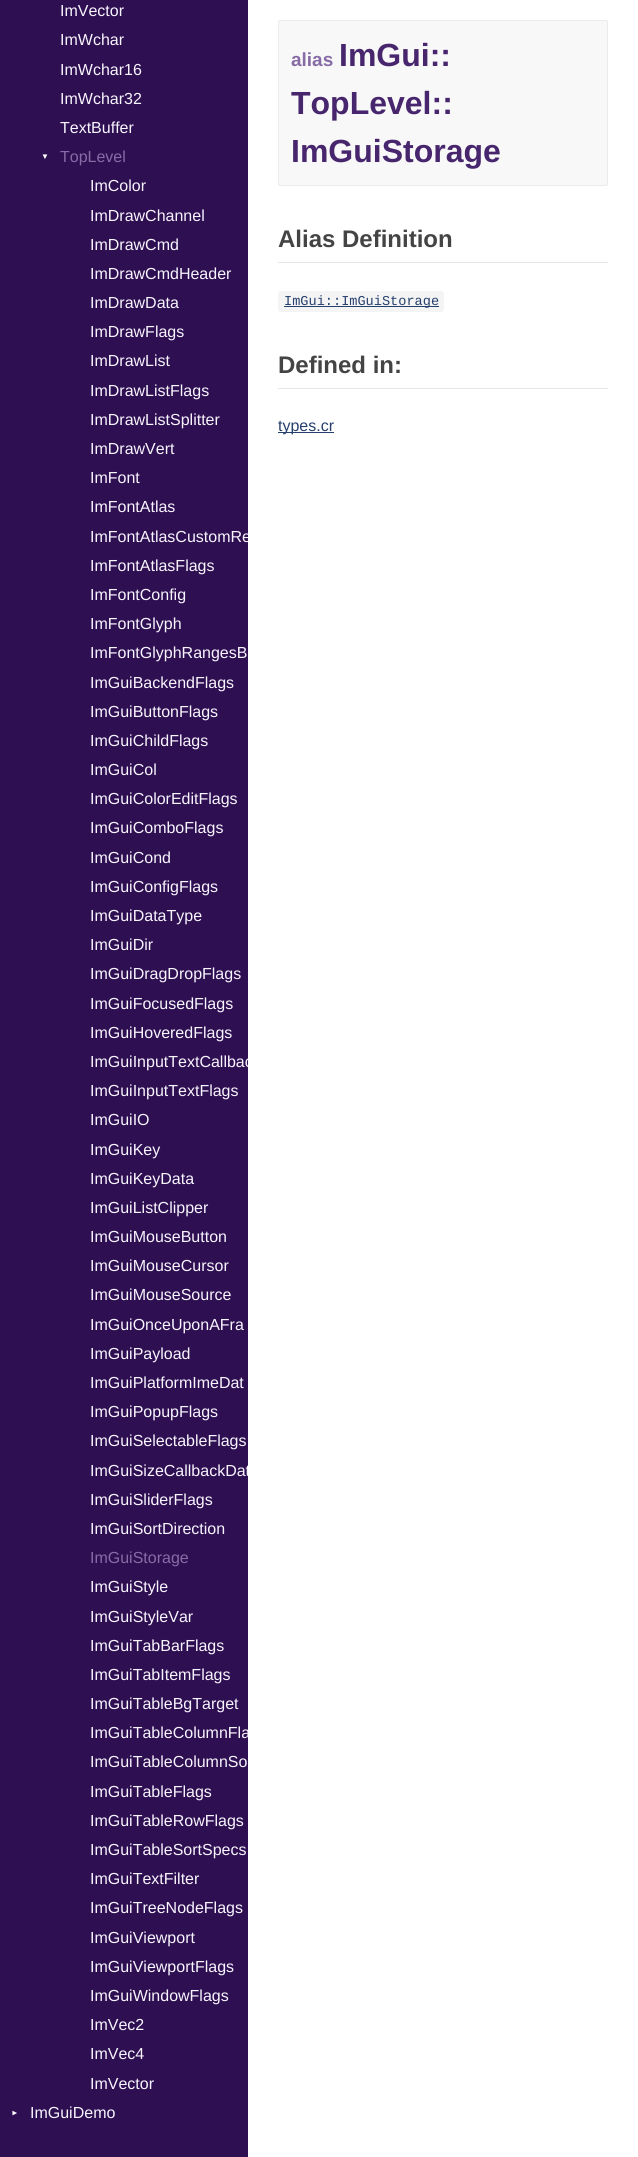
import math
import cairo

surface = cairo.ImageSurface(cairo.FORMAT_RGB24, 638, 2157)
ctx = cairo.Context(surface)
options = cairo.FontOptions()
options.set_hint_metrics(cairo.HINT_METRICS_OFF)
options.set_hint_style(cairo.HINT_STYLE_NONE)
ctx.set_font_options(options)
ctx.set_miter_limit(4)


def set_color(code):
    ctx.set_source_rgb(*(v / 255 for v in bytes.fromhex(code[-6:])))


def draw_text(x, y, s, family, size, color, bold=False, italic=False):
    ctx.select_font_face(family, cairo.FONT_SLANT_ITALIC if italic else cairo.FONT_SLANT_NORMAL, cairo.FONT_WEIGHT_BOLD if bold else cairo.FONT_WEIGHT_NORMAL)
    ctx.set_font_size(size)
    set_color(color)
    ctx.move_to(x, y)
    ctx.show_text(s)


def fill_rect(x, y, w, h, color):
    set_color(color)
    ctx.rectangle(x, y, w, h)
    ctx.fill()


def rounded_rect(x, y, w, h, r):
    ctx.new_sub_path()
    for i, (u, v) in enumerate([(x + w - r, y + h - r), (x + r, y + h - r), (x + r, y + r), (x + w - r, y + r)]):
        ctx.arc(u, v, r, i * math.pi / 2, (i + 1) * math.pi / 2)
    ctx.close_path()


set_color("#ffffff")
ctx.paint()
fill_rect(0, 0, 248, 2157, "#2e1052")
draw_text(60, 16, "ImVector", "Liberation Sans", 16, "#f8f4fd")
draw_text(60, 45, "ImWchar", "Liberation Sans", 16, "#f8f4fd")
draw_text(60, 75, "ImWchar16", "Liberation Sans", 16, "#f8f4fd")
draw_text(60, 104, "ImWchar32", "Liberation Sans", 16, "#f8f4fd")
draw_text(60, 133, "TextBuffer", "Liberation Sans", 16, "#f8f4fd")
draw_text(41, 159, "▼", "Liberation Sans", 8, "#ffffff")
draw_text(60, 162, "TopLevel", "Liberation Sans", 16, "#866ba6")
draw_text(90, 191, "ImColor", "Liberation Sans", 16, "#f8f4fd")
draw_text(90, 221, "ImDrawChannel", "Liberation Sans", 16, "#f8f4fd")
draw_text(90, 250, "ImDrawCmd", "Liberation Sans", 16, "#f8f4fd")
draw_text(90, 279, "ImDrawCmdHeader", "Liberation Sans", 16, "#f8f4fd")
draw_text(90, 308, "ImDrawData", "Liberation Sans", 16, "#f8f4fd")
draw_text(90, 337, "ImDrawFlags", "Liberation Sans", 16, "#f8f4fd")
draw_text(90, 366, "ImDrawList", "Liberation Sans", 16, "#f8f4fd")
draw_text(90, 396, "ImDrawListFlags", "Liberation Sans", 16, "#f8f4fd")
draw_text(90, 425, "ImDrawListSplitter", "Liberation Sans", 16, "#f8f4fd")
draw_text(90, 454, "ImDrawVert", "Liberation Sans", 16, "#f8f4fd")
draw_text(90, 483, "ImFont", "Liberation Sans", 16, "#f8f4fd")
draw_text(90, 512, "ImFontAtlas", "Liberation Sans", 16, "#f8f4fd")
ctx.save()
ctx.rectangle(60, 171, 188, 1927)
ctx.clip()
draw_text(90, 542, "ImFontAtlasCustomRe", "Liberation Sans", 16, "#f8f4fd")
ctx.restore()
draw_text(90, 571, "ImFontAtlasFlags", "Liberation Sans", 16, "#f8f4fd")
draw_text(90, 600, "ImFontConfig", "Liberation Sans", 16, "#f8f4fd")
draw_text(90, 629, "ImFontGlyph", "Liberation Sans", 16, "#f8f4fd")
draw_text(90, 658, "ImFontGlyphRangesB", "Liberation Sans", 16, "#f8f4fd")
draw_text(90, 688, "ImGuiBackendFlags", "Liberation Sans", 16, "#f8f4fd")
draw_text(90, 717, "ImGuiButtonFlags", "Liberation Sans", 16, "#f8f4fd")
draw_text(90, 746, "ImGuiChildFlags", "Liberation Sans", 16, "#f8f4fd")
draw_text(90, 775, "ImGuiCol", "Liberation Sans", 16, "#f8f4fd")
draw_text(90, 804, "ImGuiColorEditFlags", "Liberation Sans", 16, "#f8f4fd")
draw_text(90, 833, "ImGuiComboFlags", "Liberation Sans", 16, "#f8f4fd")
draw_text(90, 863, "ImGuiCond", "Liberation Sans", 16, "#f8f4fd")
draw_text(90, 892, "ImGuiConfigFlags", "Liberation Sans", 16, "#f8f4fd")
draw_text(90, 921, "ImGuiDataType", "Liberation Sans", 16, "#f8f4fd")
draw_text(90, 950, "ImGuiDir", "Liberation Sans", 16, "#f8f4fd")
draw_text(90, 979, "ImGuiDragDropFlags", "Liberation Sans", 16, "#f8f4fd")
draw_text(90, 1009, "ImGuiFocusedFlags", "Liberation Sans", 16, "#f8f4fd")
draw_text(90, 1038, "ImGuiHoveredFlags", "Liberation Sans", 16, "#f8f4fd")
ctx.save()
ctx.rectangle(60, 171, 188, 1927)
ctx.clip()
draw_text(90, 1067, "ImGuiInputTextCallbac", "Liberation Sans", 16, "#f8f4fd")
ctx.restore()
draw_text(90, 1096, "ImGuiInputTextFlags", "Liberation Sans", 16, "#f8f4fd")
draw_text(90, 1125, "ImGuiIO", "Liberation Sans", 16, "#f8f4fd")
draw_text(90, 1155, "ImGuiKey", "Liberation Sans", 16, "#f8f4fd")
draw_text(90, 1184, "ImGuiKeyData", "Liberation Sans", 16, "#f8f4fd")
draw_text(90, 1213, "ImGuiListClipper", "Liberation Sans", 16, "#f8f4fd")
draw_text(90, 1242, "ImGuiMouseButton", "Liberation Sans", 16, "#f8f4fd")
draw_text(90, 1271, "ImGuiMouseCursor", "Liberation Sans", 16, "#f8f4fd")
draw_text(90, 1300, "ImGuiMouseSource", "Liberation Sans", 16, "#f8f4fd")
draw_text(90, 1330, "ImGuiOnceUponAFra", "Liberation Sans", 16, "#f8f4fd")
draw_text(90, 1359, "ImGuiPayload", "Liberation Sans", 16, "#f8f4fd")
draw_text(90, 1388, "ImGuiPlatformImeDat", "Liberation Sans", 16, "#f8f4fd")
draw_text(90, 1417, "ImGuiPopupFlags", "Liberation Sans", 16, "#f8f4fd")
draw_text(90, 1446, "ImGuiSelectableFlags", "Liberation Sans", 16, "#f8f4fd")
ctx.save()
ctx.rectangle(60, 171, 188, 1927)
ctx.clip()
draw_text(90, 1476, "ImGuiSizeCallbackDat", "Liberation Sans", 16, "#f8f4fd")
ctx.restore()
draw_text(90, 1505, "ImGuiSliderFlags", "Liberation Sans", 16, "#f8f4fd")
draw_text(90, 1534, "ImGuiSortDirection", "Liberation Sans", 16, "#f8f4fd")
draw_text(90, 1563, "ImGuiStorage", "Liberation Sans", 16, "#866ba6")
draw_text(90, 1592, "ImGuiStyle", "Liberation Sans", 16, "#f8f4fd")
draw_text(90, 1622, "ImGuiStyleVar", "Liberation Sans", 16, "#f8f4fd")
draw_text(90, 1651, "ImGuiTabBarFlags", "Liberation Sans", 16, "#f8f4fd")
draw_text(90, 1680, "ImGuiTabItemFlags", "Liberation Sans", 16, "#f8f4fd")
draw_text(90, 1709, "ImGuiTableBgTarget", "Liberation Sans", 16, "#f8f4fd")
ctx.save()
ctx.rectangle(60, 171, 188, 1927)
ctx.clip()
draw_text(90, 1738, "ImGuiTableColumnFla", "Liberation Sans", 16, "#f8f4fd")
ctx.restore()
draw_text(90, 1767, "ImGuiTableColumnSo", "Liberation Sans", 16, "#f8f4fd")
draw_text(90, 1797, "ImGuiTableFlags", "Liberation Sans", 16, "#f8f4fd")
draw_text(90, 1826, "ImGuiTableRowFlags", "Liberation Sans", 16, "#f8f4fd")
draw_text(90, 1855, "ImGuiTableSortSpecs", "Liberation Sans", 16, "#f8f4fd")
draw_text(90, 1884, "ImGuiTextFilter", "Liberation Sans", 16, "#f8f4fd")
draw_text(90, 1913, "ImGuiTreeNodeFlags", "Liberation Sans", 16, "#f8f4fd")
draw_text(90, 1943, "ImGuiViewport", "Liberation Sans", 16, "#f8f4fd")
draw_text(90, 1972, "ImGuiViewportFlags", "Liberation Sans", 16, "#f8f4fd")
draw_text(90, 2001, "ImGuiWindowFlags", "Liberation Sans", 16, "#f8f4fd")
draw_text(90, 2030, "ImVec2", "Liberation Sans", 16, "#f8f4fd")
draw_text(90, 2059, "ImVec4", "Liberation Sans", 16, "#f8f4fd")
draw_text(90, 2089, "ImVector", "Liberation Sans", 16, "#f8f4fd")
ctx.save()
ctx.translate(17, 2117)
ctx.rotate(-90 * math.pi / 180)
draw_text(0, 0, "▼", "Liberation Sans", 8, "#ffffff")
ctx.restore()
draw_text(30, 2118, "ImGuiDemo", "Liberation Sans", 16, "#f8f4fd")
set_color("#f8f8f8")
rounded_rect(278.5, 20.5, 329, 165, 1.5)
ctx.fill_preserve()
set_color("#ebebeb")
ctx.set_line_width(1)
ctx.stroke()
draw_text(291, 66, "alias", "Liberation Sans", 19, "#866ba6", bold=True)
draw_text(339, 66, "ImGui::", "Liberation Sans", 32, "#47266e", bold=True)
draw_text(291, 114, "TopLevel::", "Liberation Sans", 32, "#47266e", bold=True)
draw_text(291, 162, "ImGuiStorage", "Liberation Sans", 32, "#47266e", bold=True)
fill_rect(278, 262, 330, 1, "#e6e6e6")
draw_text(278, 247, "Alias Definition", "Liberation Sans", 24, "#444444", bold=True)
set_color("#f4f4f4")
rounded_rect(278, 291, 166, 21, 3)
ctx.fill()
fill_rect(284, 306, 155, 1, "#263f6c")
draw_text(284, 305, "ImGui::ImGuiStorage", "Liberation Mono", 13.6, "#263f6c")
fill_rect(278, 388, 330, 1, "#e6e6e6")
draw_text(278, 373, "Defined in:", "Liberation Sans", 24, "#444444", bold=True)
fill_rect(278, 432, 56, 1, "#263f6c")
draw_text(278, 431, "types.cr", "Liberation Sans", 16, "#263f6c")
surface.write_to_png("output.png")
